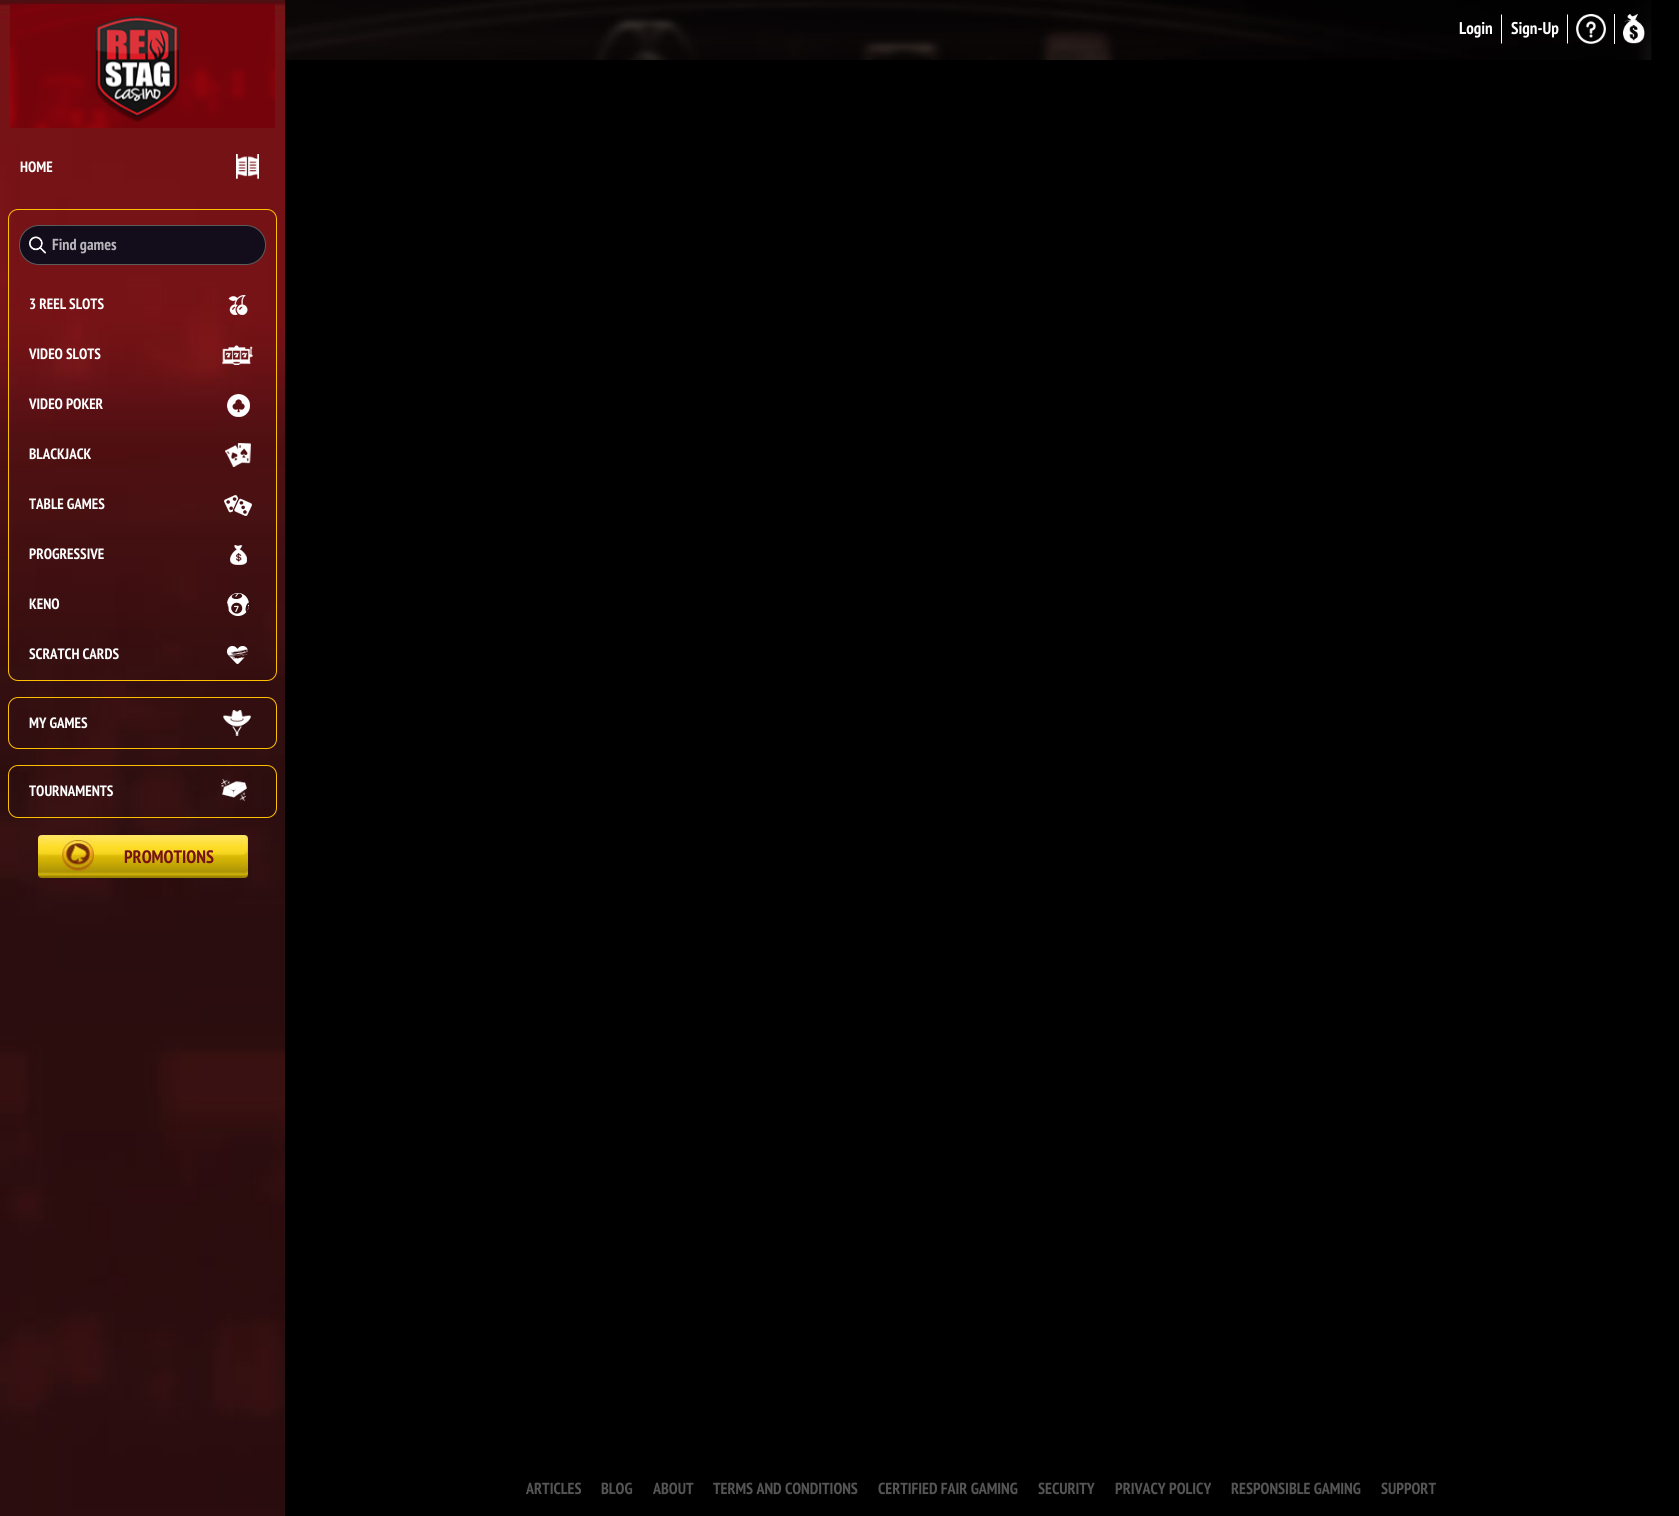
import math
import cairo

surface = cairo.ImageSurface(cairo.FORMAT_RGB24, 1679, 1516)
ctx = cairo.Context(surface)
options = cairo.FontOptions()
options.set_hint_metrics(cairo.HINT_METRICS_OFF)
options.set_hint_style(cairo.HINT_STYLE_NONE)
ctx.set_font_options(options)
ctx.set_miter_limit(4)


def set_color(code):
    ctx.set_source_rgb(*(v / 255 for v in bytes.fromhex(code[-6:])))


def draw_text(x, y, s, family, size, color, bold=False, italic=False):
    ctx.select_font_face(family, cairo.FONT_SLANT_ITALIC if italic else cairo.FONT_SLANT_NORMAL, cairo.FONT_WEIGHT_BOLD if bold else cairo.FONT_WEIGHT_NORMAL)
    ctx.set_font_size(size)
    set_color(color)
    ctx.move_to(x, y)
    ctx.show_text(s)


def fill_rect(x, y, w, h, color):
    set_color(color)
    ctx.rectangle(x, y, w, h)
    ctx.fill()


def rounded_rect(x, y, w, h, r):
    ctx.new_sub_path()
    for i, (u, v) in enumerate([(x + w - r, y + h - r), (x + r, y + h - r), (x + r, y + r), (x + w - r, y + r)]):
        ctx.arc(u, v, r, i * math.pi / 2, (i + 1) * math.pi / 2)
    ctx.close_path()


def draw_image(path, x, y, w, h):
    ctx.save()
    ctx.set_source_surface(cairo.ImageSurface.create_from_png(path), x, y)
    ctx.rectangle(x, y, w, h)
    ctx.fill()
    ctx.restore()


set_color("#000000")
ctx.paint()
draw_image("assets/img1.png", 285, 0, 1367, 60)
set_color("#ffffff")
ctx.new_path()
ctx.move_to(1502, 14)
ctx.line_to(1502, 44)
ctx.line_to(1501, 43)
ctx.line_to(1501, 15)
ctx.close_path()
ctx.fill()
draw_text(1459, 34, "Login", "PT Sans Narrow", 17, "#ffffff", bold=True)
ctx.new_path()
ctx.move_to(1568, 14)
ctx.line_to(1568, 44)
ctx.line_to(1567, 43)
ctx.line_to(1567, 15)
ctx.close_path()
ctx.fill()
draw_text(1511, 34, "Sign-Up", "PT Sans Narrow", 17, "#ffffff", bold=True)
fill_rect(1614, 14, 1, 30, "#ffffff")
draw_image("assets/img2.png", 1576, 14, 30, 30)
draw_image("assets/img3.png", 1623, 14, 22, 30)
draw_image("assets/img4.png", 0, 0, 285, 1516)
draw_image("assets/img5.png", 10, 4, 265, 124)
draw_text(20, 172, "HOME", "PT Sans Narrow", 15, "#ffffff", bold=True)
draw_image("assets/img6.png", 236, 154, 23, 25)
rounded_rect(8.5, 209.5, 268, 471, 9.5)
set_color("#ffc000")
ctx.set_line_width(1)
ctx.stroke()
set_color("#120c1b")
rounded_rect(19.5, 225.5, 246, 39, 19.5)
ctx.fill_preserve()
set_color("#5c5c5c")
ctx.stroke()
draw_image("assets/img7.png", 29, 236, 17, 18)
draw_text(52, 250, "Find games", "PT Sans Narrow", 16, "#b8b6bb", bold=True)
draw_text(29, 309, "3 REEL SLOTS", "PT Sans Narrow", 15, "#ffffff", bold=True)
draw_image("assets/img8.png", 228, 295, 20, 20)
draw_text(29, 359, "VIDEO SLOTS", "PT Sans Narrow", 15, "#ffffff", bold=True)
draw_image("assets/img9.png", 222, 345, 31, 20)
draw_text(29, 409, "VIDEO POKER", "PT Sans Narrow", 15, "#ffffff", bold=True)
draw_image("assets/img10.png", 227, 394, 23, 23)
draw_text(29, 459, "BLACKJACK", "PT Sans Narrow", 15, "#ffffff", bold=True)
draw_image("assets/img11.png", 225, 443, 26, 24)
draw_text(29, 509, "TABLE GAMES", "PT Sans Narrow", 15, "#ffffff", bold=True)
draw_image("assets/img12.png", 224, 495, 28, 21)
draw_text(29, 559, "PROGRESSIVE", "PT Sans Narrow", 15, "#ffffff", bold=True)
draw_image("assets/img13.png", 230, 545, 17, 20)
draw_text(29, 609, "KENO", "PT Sans Narrow", 15, "#ffffff", bold=True)
draw_image("assets/img14.png", 227, 593, 22, 23)
draw_text(29, 659, "SCRATCH CARDS", "PT Sans Narrow", 15, "#ffffff", bold=True)
draw_image("assets/img15.png", 227, 646, 21, 18)
rounded_rect(8.5, 697.5, 268, 51, 9.5)
set_color("#ffc000")
ctx.stroke()
draw_text(29, 728, "MY GAMES", "PT Sans Narrow", 15, "#ffffff", bold=True)
draw_image("assets/img16.png", 223, 710, 28, 26)
rounded_rect(8.5, 765.5, 268, 52, 9.5)
set_color("#ffc000")
ctx.stroke()
draw_text(29, 796, "TOURNAMENTS", "PT Sans Narrow", 15, "#ffffff", bold=True)
draw_image("assets/img17.png", 221, 779, 26, 22)
draw_image("assets/img18.png", 38, 835, 210, 43)
draw_text(124, 863, "PROMOTIONS", "PT Sans Narrow", 18, "#751215", bold=True)
draw_text(526, 1494, "ARTICLES", "PT Sans Narrow", 16, "#555555", bold=True)
draw_text(601, 1494, "BLOG", "PT Sans Narrow", 16, "#555555", bold=True)
draw_text(653, 1494, "ABOUT", "PT Sans Narrow", 16, "#555555", bold=True)
draw_text(713, 1494, "TERMS AND CONDITIONS", "PT Sans Narrow", 16, "#555555", bold=True)
draw_text(878, 1494, "CERTIFIED FAIR GAMING", "PT Sans Narrow", 16, "#555555", bold=True)
draw_text(1038, 1494, "SECURITY", "PT Sans Narrow", 16, "#555555", bold=True)
draw_text(1115, 1494, "PRIVACY POLICY", "PT Sans Narrow", 16, "#555555", bold=True)
draw_text(1231, 1494, "RESPONSIBLE GAMING", "PT Sans Narrow", 16, "#555555", bold=True)
draw_text(1381, 1494, "SUPPORT", "PT Sans Narrow", 16, "#555555", bold=True)
surface.write_to_png("output.png")
